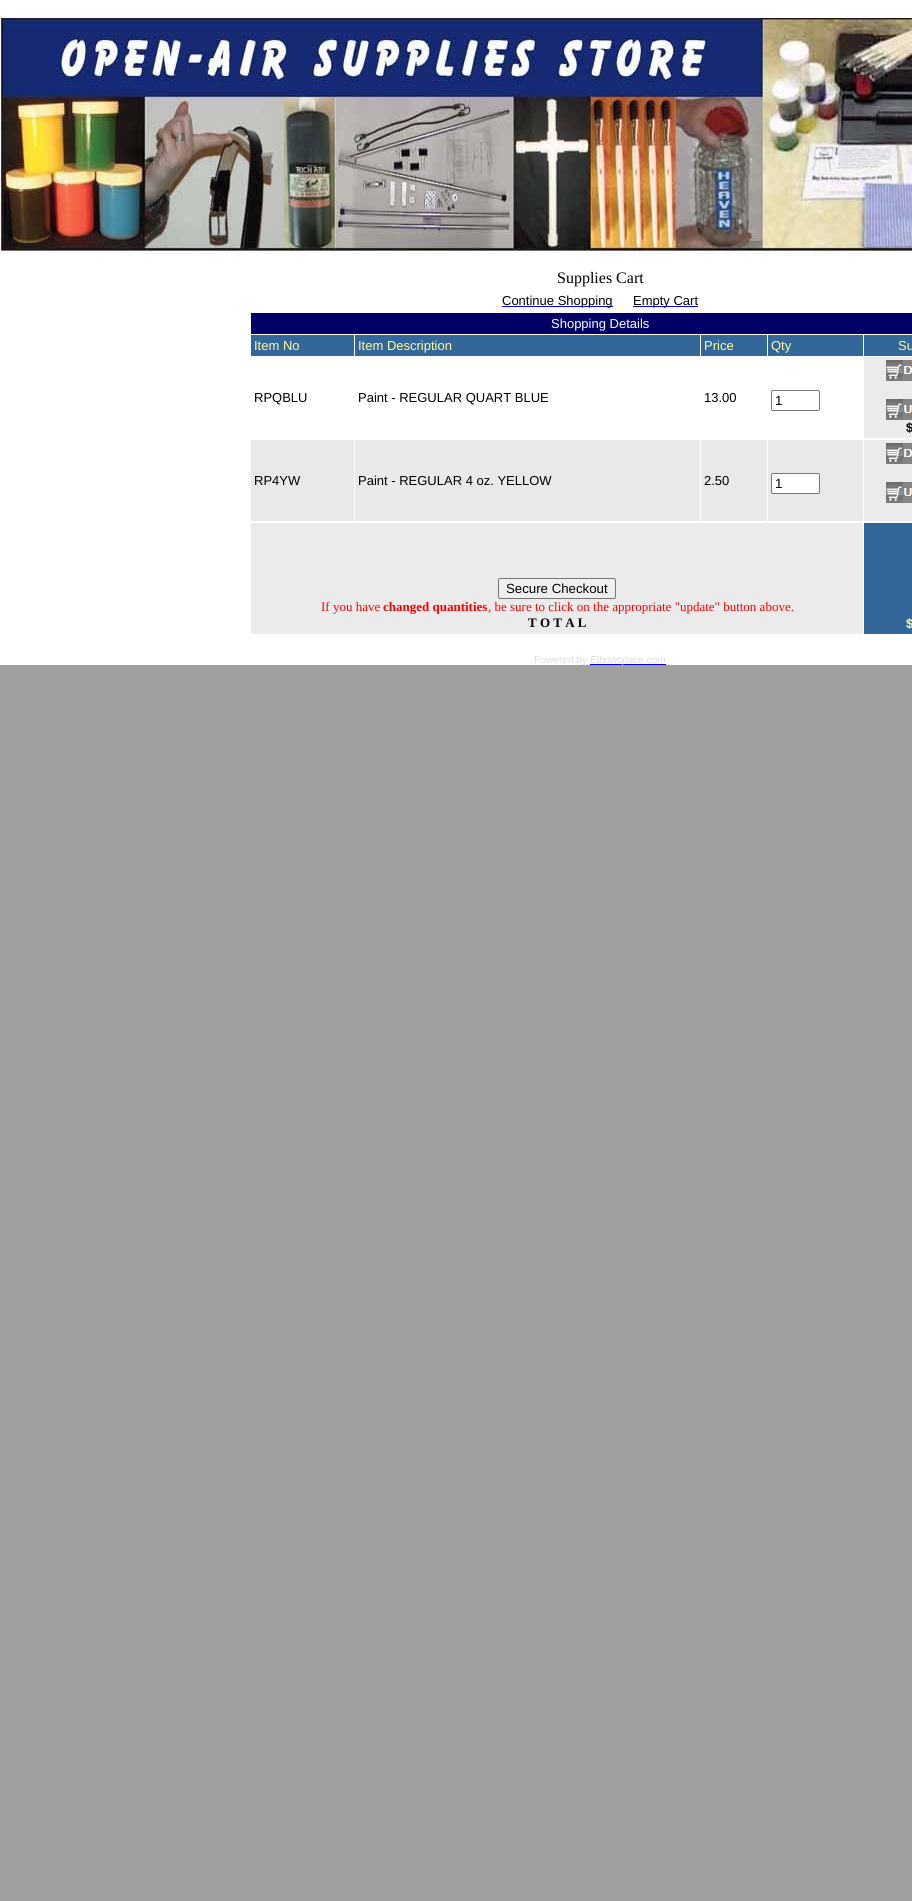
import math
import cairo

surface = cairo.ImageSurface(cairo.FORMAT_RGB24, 912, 1901)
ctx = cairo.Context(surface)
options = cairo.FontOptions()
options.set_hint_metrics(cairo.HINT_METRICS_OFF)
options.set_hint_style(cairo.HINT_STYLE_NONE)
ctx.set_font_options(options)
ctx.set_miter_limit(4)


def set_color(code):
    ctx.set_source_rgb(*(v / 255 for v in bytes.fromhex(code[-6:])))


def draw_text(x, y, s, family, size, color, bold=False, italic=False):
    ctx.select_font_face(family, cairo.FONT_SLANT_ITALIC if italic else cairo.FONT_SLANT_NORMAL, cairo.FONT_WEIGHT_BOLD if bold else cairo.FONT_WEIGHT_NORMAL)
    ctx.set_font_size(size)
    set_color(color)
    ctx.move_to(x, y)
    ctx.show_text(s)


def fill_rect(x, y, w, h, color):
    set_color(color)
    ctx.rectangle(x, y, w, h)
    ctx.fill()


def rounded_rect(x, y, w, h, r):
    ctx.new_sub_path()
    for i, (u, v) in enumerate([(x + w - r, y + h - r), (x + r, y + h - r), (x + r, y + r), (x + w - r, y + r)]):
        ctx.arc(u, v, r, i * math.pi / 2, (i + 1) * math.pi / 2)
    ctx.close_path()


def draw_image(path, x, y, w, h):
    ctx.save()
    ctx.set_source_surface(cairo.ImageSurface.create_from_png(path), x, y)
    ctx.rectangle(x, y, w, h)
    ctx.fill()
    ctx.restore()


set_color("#a0a0a0")
ctx.paint()
fill_rect(0, 0, 912, 665, "#ffffff")
draw_image("assets/img1.png", 0, 18, 912, 233)
draw_text(557, 283, "Supplies Cart", "Liberation Serif", 16, "#000000")
fill_rect(502, 306, 111, 1, "#0000ee")
draw_text(502, 305, "Continue Shopping", "Liberation Sans", 13, "#000000")
fill_rect(633, 306, 65, 1, "#0000ee")
draw_text(633, 305, "Empty Cart", "Liberation Sans", 13, "#000000")
fill_rect(251, 313, 661, 21, "#000066")
draw_text(551, 328, "Shopping Details", "Liberation Sans", 13, "#ffffff")
fill_rect(251, 335, 103, 21, "#336699")
draw_text(254, 350, "Item No", "Liberation Sans", 13, "#ffff99")
fill_rect(355, 335, 345, 21, "#336699")
draw_text(358, 350, "Item Description", "Liberation Sans", 13, "#ffff99")
fill_rect(701, 335, 66, 21, "#336699")
draw_text(704, 350, "Price", "Liberation Sans", 13, "#ffff99")
fill_rect(768, 335, 95, 21, "#336699")
draw_text(771, 350, "Qty", "Liberation Sans", 13, "#ffff99")
fill_rect(864, 335, 48, 21, "#336699")
draw_text(898, 350, "Su", "Liberation Sans", 13, "#ffff99")
draw_text(254, 402, "RPQBLU", "Liberation Sans", 13, "#000000")
draw_text(358, 402, "Paint - REGULAR QUART BLUE", "Liberation Sans", 13, "#000000")
draw_text(704, 402, "13.00", "Liberation Sans", 13, "#000000")
rounded_rect(771.5, 390.5, 48, 20, 1.5)
set_color("#767676")
ctx.set_line_width(1)
ctx.stroke()
draw_text(775, 405, "1", "Liberation Sans", 13.25, "#000000")
fill_rect(864, 357, 48, 81, "#ebebeb")
draw_image("assets/img2.png", 886, 360, 26, 21)
draw_image("assets/img3.png", 886, 399, 26, 21)
draw_text(906, 432, "$", "Liberation Sans", 13, "#000000", bold=True)
fill_rect(251, 440, 103, 81, "#e9e9e9")
draw_text(254, 485, "RP4YW", "Liberation Sans", 13, "#000000")
fill_rect(355, 440, 345, 81, "#e9e9e9")
draw_text(358, 485, "Paint - REGULAR 4 oz. YELLOW", "Liberation Sans", 13, "#000000")
fill_rect(701, 440, 66, 81, "#e9e9e9")
draw_text(704, 485, "2.50", "Liberation Sans", 13, "#000000")
fill_rect(768, 440, 95, 81, "#e9e9e9")
set_color("#ffffff")
rounded_rect(771.5, 473.5, 48, 20, 1.5)
ctx.fill_preserve()
set_color("#767676")
ctx.stroke()
draw_text(775, 488, "1", "Liberation Sans", 13.25, "#000000")
fill_rect(864, 440, 48, 81, "#ebebeb")
draw_image("assets/img2.png", 886, 443, 26, 21)
draw_image("assets/img3.png", 886, 482, 26, 21)
fill_rect(251, 523, 612, 111, "#ebebeb")
set_color("#efefef")
rounded_rect(498.5, 578.5, 117, 20, 1.5)
ctx.fill_preserve()
set_color("#767676")
ctx.stroke()
draw_text(506, 593, "Secure Checkout", "Liberation Sans", 13.25, "#000000")
draw_text(321, 611, "If you have", "Liberation Serif", 13, "#ff0000")
draw_text(383, 611, "changed quantities", "Liberation Serif", 13, "#ff0000", bold=True)
draw_text(488, 611, ", be sure to click on the appropriate \"update\" button above.", "Liberation Serif", 13, "#ff0000")
draw_text(528, 627, "T O T A L", "Liberation Serif", 13, "#000000", bold=True)
fill_rect(864, 523, 48, 111, "#336699")
draw_text(906, 628, "$", "Liberation Sans", 13, "#ffff99", bold=True)
draw_text(534, 663, "Powered by", "Liberation Sans", 10, "#dddddd")
fill_rect(590, 664, 76, 1, "#0000ee")
draw_text(590, 663, "Elbowspace.com", "Liberation Sans", 10, "#dddddd", italic=True)
surface.write_to_png("output.png")
